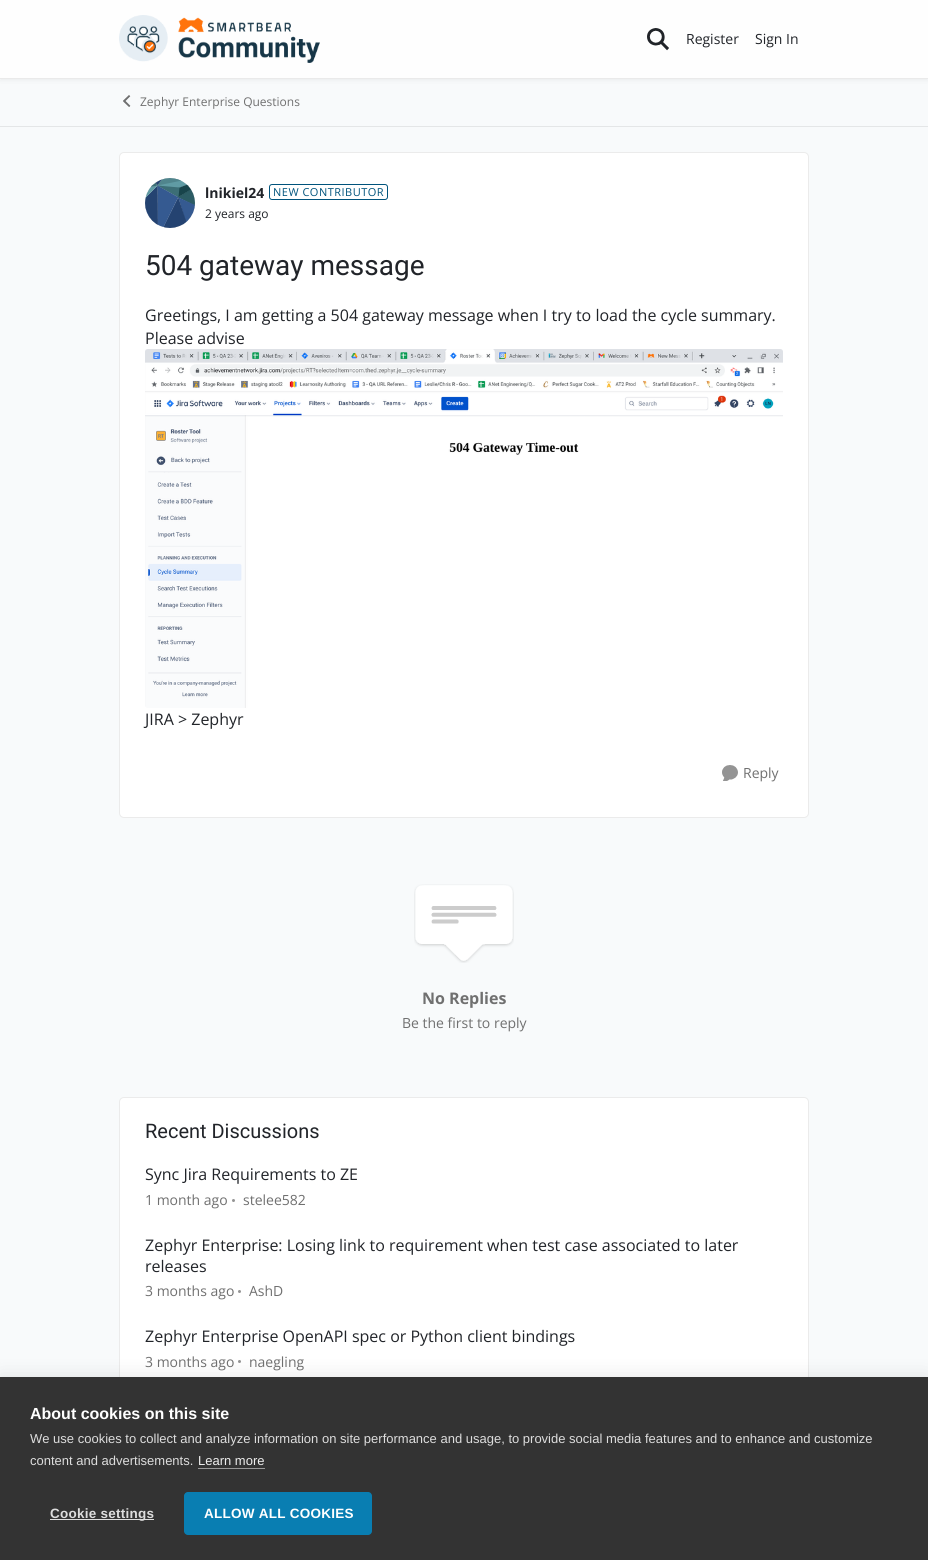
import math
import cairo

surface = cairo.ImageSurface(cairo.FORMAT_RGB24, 928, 1560)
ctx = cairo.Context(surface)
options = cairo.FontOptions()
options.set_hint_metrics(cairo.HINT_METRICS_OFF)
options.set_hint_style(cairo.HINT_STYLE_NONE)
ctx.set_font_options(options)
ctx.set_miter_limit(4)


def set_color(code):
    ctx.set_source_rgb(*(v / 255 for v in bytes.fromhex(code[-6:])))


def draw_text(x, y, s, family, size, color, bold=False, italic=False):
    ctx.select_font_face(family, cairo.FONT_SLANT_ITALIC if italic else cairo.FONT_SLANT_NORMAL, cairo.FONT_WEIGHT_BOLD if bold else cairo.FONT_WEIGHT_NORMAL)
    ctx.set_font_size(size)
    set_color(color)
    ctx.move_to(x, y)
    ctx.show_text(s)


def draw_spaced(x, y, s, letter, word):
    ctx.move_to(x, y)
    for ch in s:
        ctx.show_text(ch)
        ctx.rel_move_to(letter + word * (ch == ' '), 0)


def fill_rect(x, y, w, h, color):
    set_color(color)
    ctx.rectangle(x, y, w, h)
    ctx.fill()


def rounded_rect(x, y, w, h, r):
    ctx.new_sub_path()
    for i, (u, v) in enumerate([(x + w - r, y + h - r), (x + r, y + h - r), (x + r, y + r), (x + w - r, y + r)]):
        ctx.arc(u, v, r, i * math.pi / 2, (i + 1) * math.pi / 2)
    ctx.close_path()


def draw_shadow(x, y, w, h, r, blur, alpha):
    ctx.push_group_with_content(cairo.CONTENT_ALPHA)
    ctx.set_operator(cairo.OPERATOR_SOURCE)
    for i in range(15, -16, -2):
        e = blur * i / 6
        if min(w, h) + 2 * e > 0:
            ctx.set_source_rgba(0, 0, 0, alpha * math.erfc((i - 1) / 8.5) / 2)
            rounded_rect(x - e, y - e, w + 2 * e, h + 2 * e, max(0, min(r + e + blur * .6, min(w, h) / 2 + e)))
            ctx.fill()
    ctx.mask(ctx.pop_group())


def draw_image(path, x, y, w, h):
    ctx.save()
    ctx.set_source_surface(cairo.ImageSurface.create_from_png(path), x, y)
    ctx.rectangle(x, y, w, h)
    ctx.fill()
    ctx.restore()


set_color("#f8fafb")
ctx.paint()
set_color("#333333")
draw_shadow(0, 2, 928, 79, 0, 2, 0.06)
fill_rect(0, 0, 928, 78, "#fefefe")
fill_rect(0, 78, 928, 1, "#eaeaea")
draw_image("assets/img1.png", 119, 15, 201, 48)
draw_image("assets/img2.png", 647, 28, 22, 23)
draw_text(686, 44, "Register", "Open Sans", 14, "#212429")
draw_text(755, 44, "Sign In", "Open Sans", 14, "#212429")
fill_rect(0, 126, 928, 1, "#e4e6e7")
draw_image("assets/img3.png", 123, 95, 8, 12)
draw_text(140, 106, "Zephyr Enterprise Questions", "Open Sans", 12, "#707070")
set_color("#ffffff")
rounded_rect(119, 152, 690, 666, 5)
ctx.fill()
rounded_rect(119.5, 152.5, 689, 665, 4.5)
ctx.set_source_rgba(0, 0, 0, 0.08)
ctx.set_line_width(1)
ctx.stroke()
set_color("#d9d9d9")
ctx.arc(170, 203, 25, 0, 2 * math.pi)
ctx.fill()
draw_image("assets/img4.png", 145, 178, 50, 50)
draw_text(205, 198, "lnikiel24", "Open Sans", 14, "#212429", bold=True)
rounded_rect(269.5, 184.5, 118, 15, 2.5)
set_color("#00537c")
ctx.stroke()
ctx.select_font_face("Open Sans")
ctx.set_font_size(11)
draw_spaced(273, 196, "NEW CONTRIBUTOR", 0.5, 0)
draw_text(205, 218, "2 years ago", "Open Sans", 12, "#212429")
draw_text(145, 275, "504 gateway message", "Roboto", 28, "#212429")
draw_text(145, 321, "Greetings, I am getting a 504 gateway message when I try to load the cycle summary.", "Open Sans", 16, "#212429")
draw_text(145, 344, "Please advise", "Open Sans", 16, "#212429")
draw_image("assets/img5.png", 145, 349, 638, 359)
draw_text(145, 725, "JIRA > Zephyr", "Open Sans", 16, "#212429")
draw_image("assets/img6.png", 722, 765, 16, 16)
draw_text(743, 778, "Reply", "Open Sans", 14, "#707070")
draw_image("assets/img7.png", 414, 884, 100, 79)
draw_text(422, 1004, "No Replies", "Open Sans", 16, "#707070", bold=True)
draw_text(402, 1028, "Be the first to reply", "Open Sans", 14, "#707070")
set_color("#ffffff")
rounded_rect(119, 1097, 690, 335, 5)
ctx.fill()
rounded_rect(119.5, 1097.5, 689, 334, 4.5)
ctx.set_source_rgba(0, 0, 0, 0.08)
ctx.stroke()
draw_text(145, 1138, "Recent Discussions", "Roboto", 20, "#212429")
draw_text(145, 1180, "Sync Jira Requirements to ZE", "Open Sans", 16, "#212429")
draw_text(145, 1205, "1 month ago", "Open Sans", 14, "#707070")
set_color("#949494")
ctx.new_path()
ctx.arc(233.5, 1200.5, 1.5, 0, 2 * math.pi)
ctx.fill()
draw_text(243, 1205, "stelee582", "Open Sans", 14, "#707070")
draw_text(145, 1251, "Zephyr Enterprise: Losing link to requirement when test case associated to later", "Open Sans", 16, "#212429")
draw_text(145, 1272, "releases", "Open Sans", 16, "#212429")
draw_text(145, 1296, "3 months ago", "Open Sans", 14, "#707070")
set_color("#949494")
ctx.new_path()
ctx.arc(239.5, 1291.5, 1.5, 0, 2 * math.pi)
ctx.fill()
draw_text(249, 1296, "AshD", "Open Sans", 14, "#707070")
draw_text(145, 1342, "Zephyr Enterprise OpenAPI spec or Python client bindings", "Open Sans", 16, "#212429")
draw_text(145, 1367, "3 months ago", "Open Sans", 14, "#707070")
set_color("#949494")
ctx.new_path()
ctx.arc(239.5, 1361.5, 1.5, 0, 2 * math.pi)
ctx.fill()
draw_text(249, 1367, "naegling", "Open Sans", 14, "#707070")
set_color("#000000")
draw_shadow(0, 1377, 928, 183, 0, 10, 0.1)
fill_rect(0, 1377, 928, 183, "#333333")
draw_text(30, 1419, "About cookies on this site", "Liberation Sans", 16, "#ffffff", bold=True)
draw_text(30, 1443, "We use cookies to collect and analyze information on site performance and usage, to provide social media features and to enhance and customize", "Liberation Sans", 13, "#dddddd")
draw_text(30, 1465, "content and advertisements.", "Liberation Sans", 13, "#dddddd")
draw_text(198, 1465, "Learn more", "Liberation Sans", 13, "#eeeeee")
fill_rect(198, 1468, 67, 1, "#999999")
fill_rect(50, 1519, 104, 1, "#dddddd")
ctx.select_font_face("Liberation Sans", cairo.FONT_SLANT_NORMAL, cairo.FONT_WEIGHT_BOLD)
ctx.set_font_size(13.5)
draw_spaced(50, 1518, "Cookie settings", 0.25, 0)
set_color("#097eb2")
rounded_rect(184, 1492, 188, 43, 4)
ctx.fill()
set_color("#ffffff")
draw_spaced(204, 1518, "ALLOW ALL COOKIES", 0.25, 0)
surface.write_to_png("output.png")
